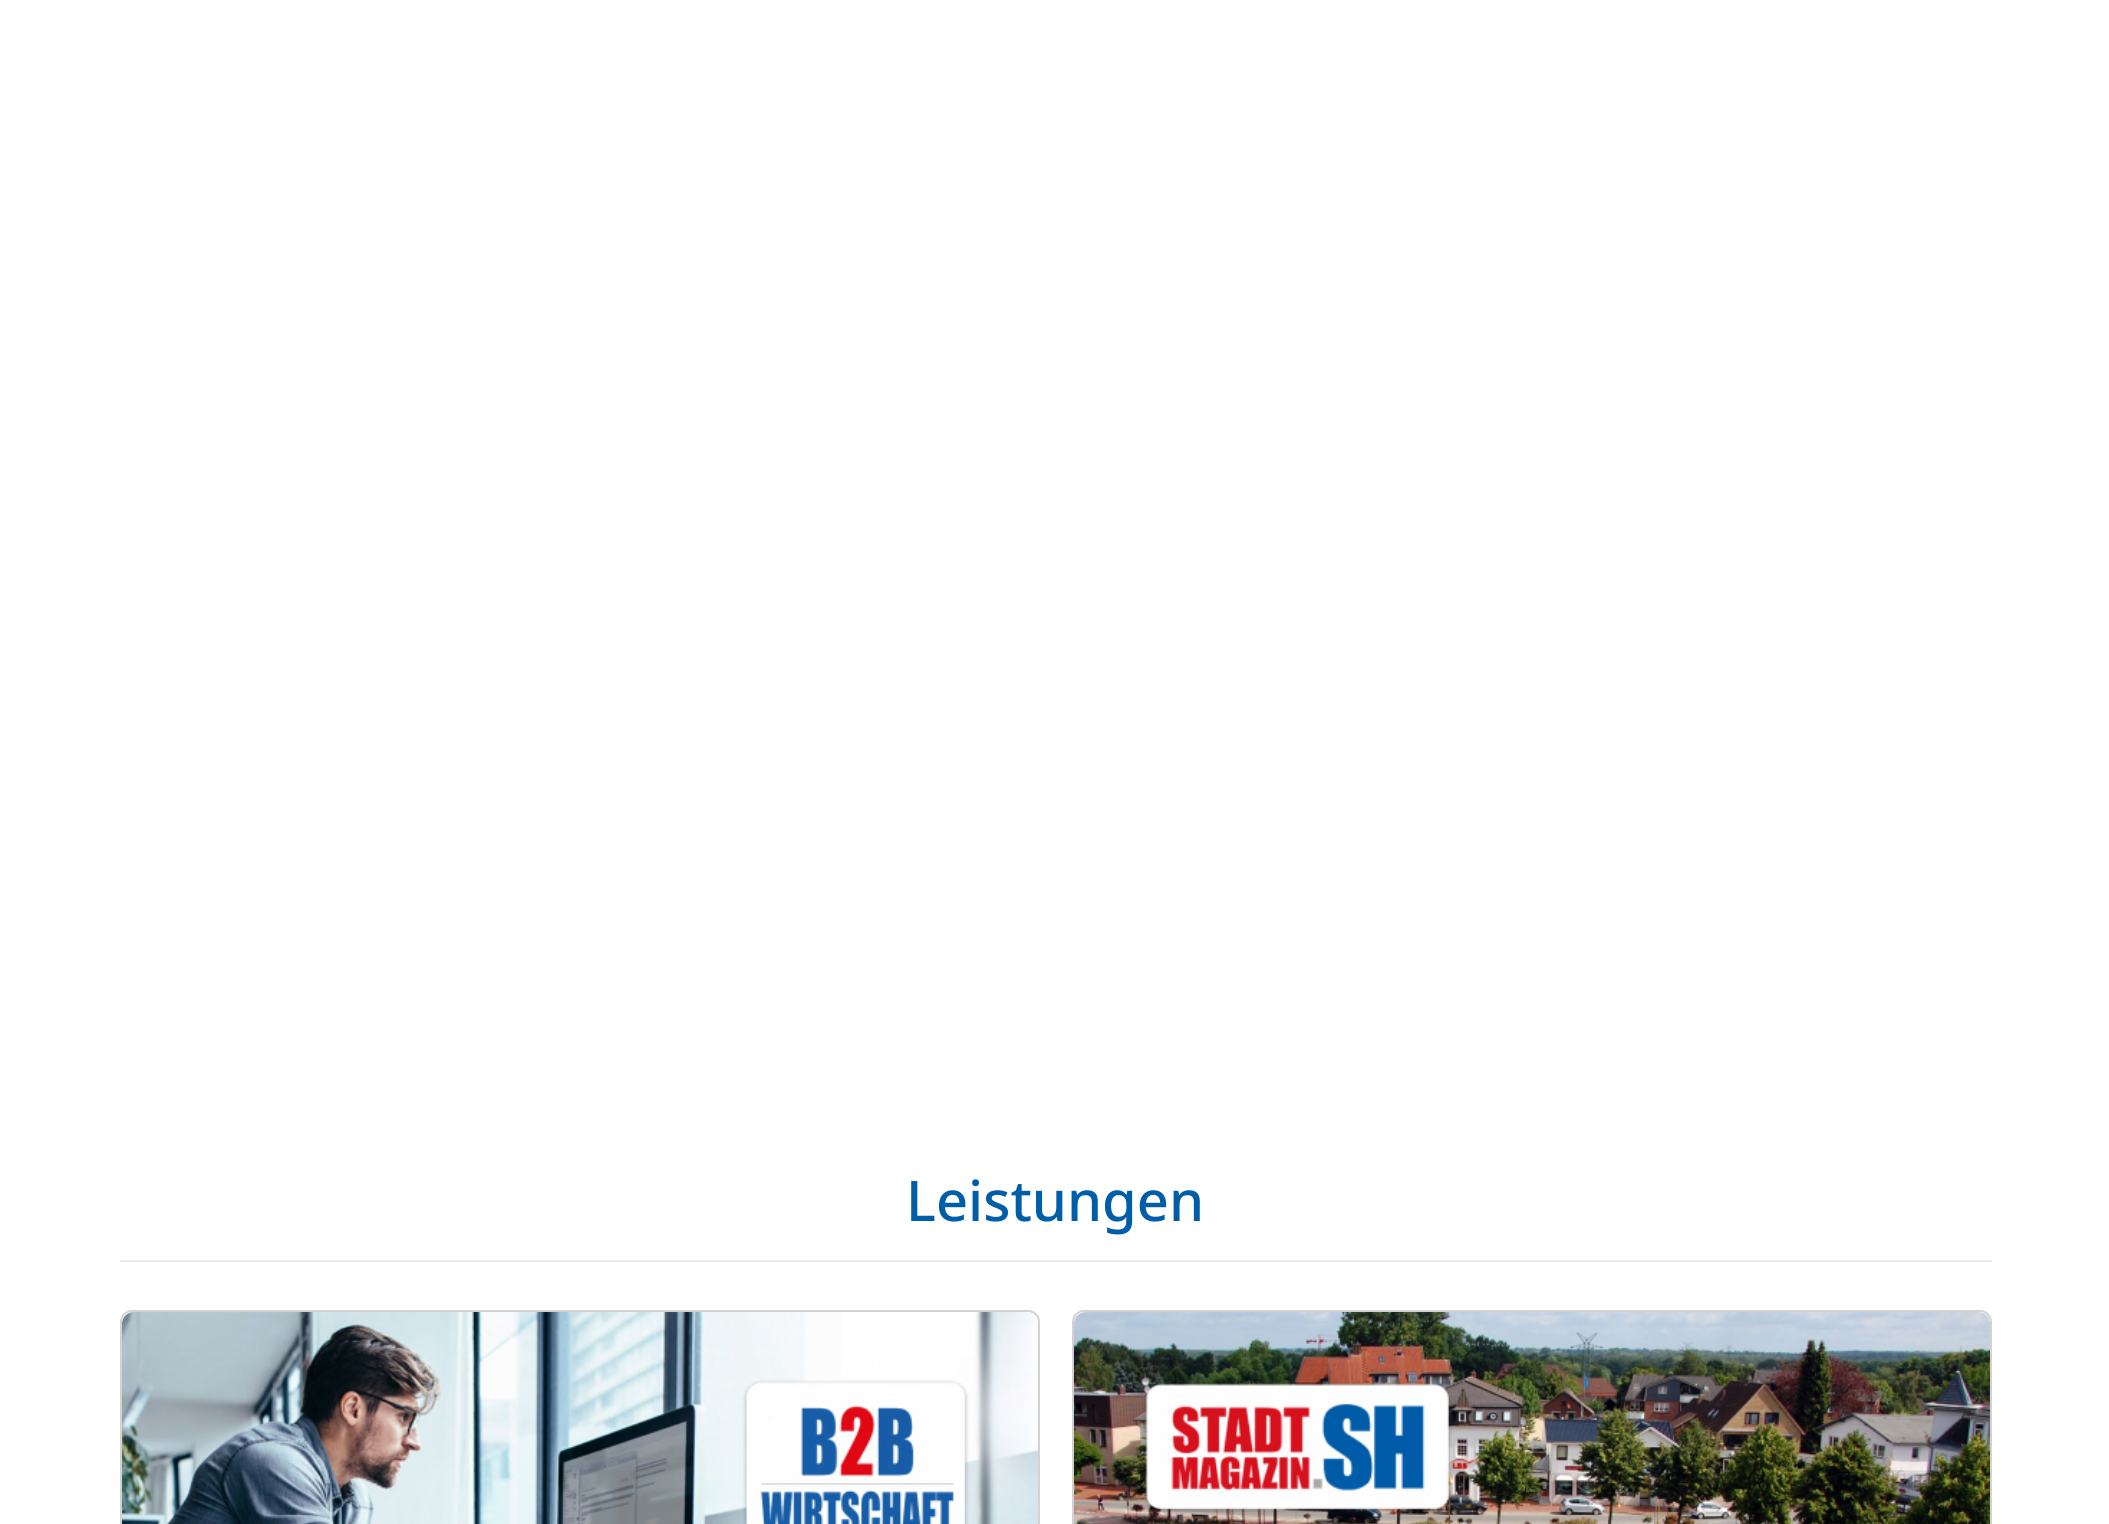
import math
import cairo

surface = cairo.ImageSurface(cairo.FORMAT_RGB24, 2109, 1524)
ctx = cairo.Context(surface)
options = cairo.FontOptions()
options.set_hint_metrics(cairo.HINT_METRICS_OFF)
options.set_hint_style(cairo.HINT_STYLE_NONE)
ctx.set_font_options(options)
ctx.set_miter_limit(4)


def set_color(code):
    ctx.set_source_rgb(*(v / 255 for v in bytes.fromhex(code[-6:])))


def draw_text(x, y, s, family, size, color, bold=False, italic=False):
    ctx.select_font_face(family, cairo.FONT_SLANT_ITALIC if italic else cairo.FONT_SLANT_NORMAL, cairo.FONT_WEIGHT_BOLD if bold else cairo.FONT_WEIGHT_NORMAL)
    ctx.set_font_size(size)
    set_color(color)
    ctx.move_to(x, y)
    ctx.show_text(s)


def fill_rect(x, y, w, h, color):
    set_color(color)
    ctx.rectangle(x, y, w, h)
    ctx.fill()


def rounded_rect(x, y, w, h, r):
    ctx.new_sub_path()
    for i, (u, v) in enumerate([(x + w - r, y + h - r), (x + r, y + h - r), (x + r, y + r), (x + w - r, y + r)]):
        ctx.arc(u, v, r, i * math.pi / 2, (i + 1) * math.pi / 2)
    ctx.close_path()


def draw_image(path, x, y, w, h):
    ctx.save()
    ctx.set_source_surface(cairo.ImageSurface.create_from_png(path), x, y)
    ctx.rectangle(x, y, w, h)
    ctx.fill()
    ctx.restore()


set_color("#ffffff")
ctx.paint()
fill_rect(120, 1260, 1872, 2, "#e9ecef")
draw_text(906, 1221, "Leistungen", "Noto Sans Medium", 56, "#005da8")
rounded_rect(121, 1311, 918, 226, 11)
set_color("#d2d2d2")
ctx.stroke()
draw_image("assets/img1.png", 122, 1312, 916, 212)
rounded_rect(1073, 1311, 918, 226, 11)
ctx.stroke()
draw_image("assets/img2.png", 1074, 1312, 916, 212)
surface.write_to_png("output.png")
